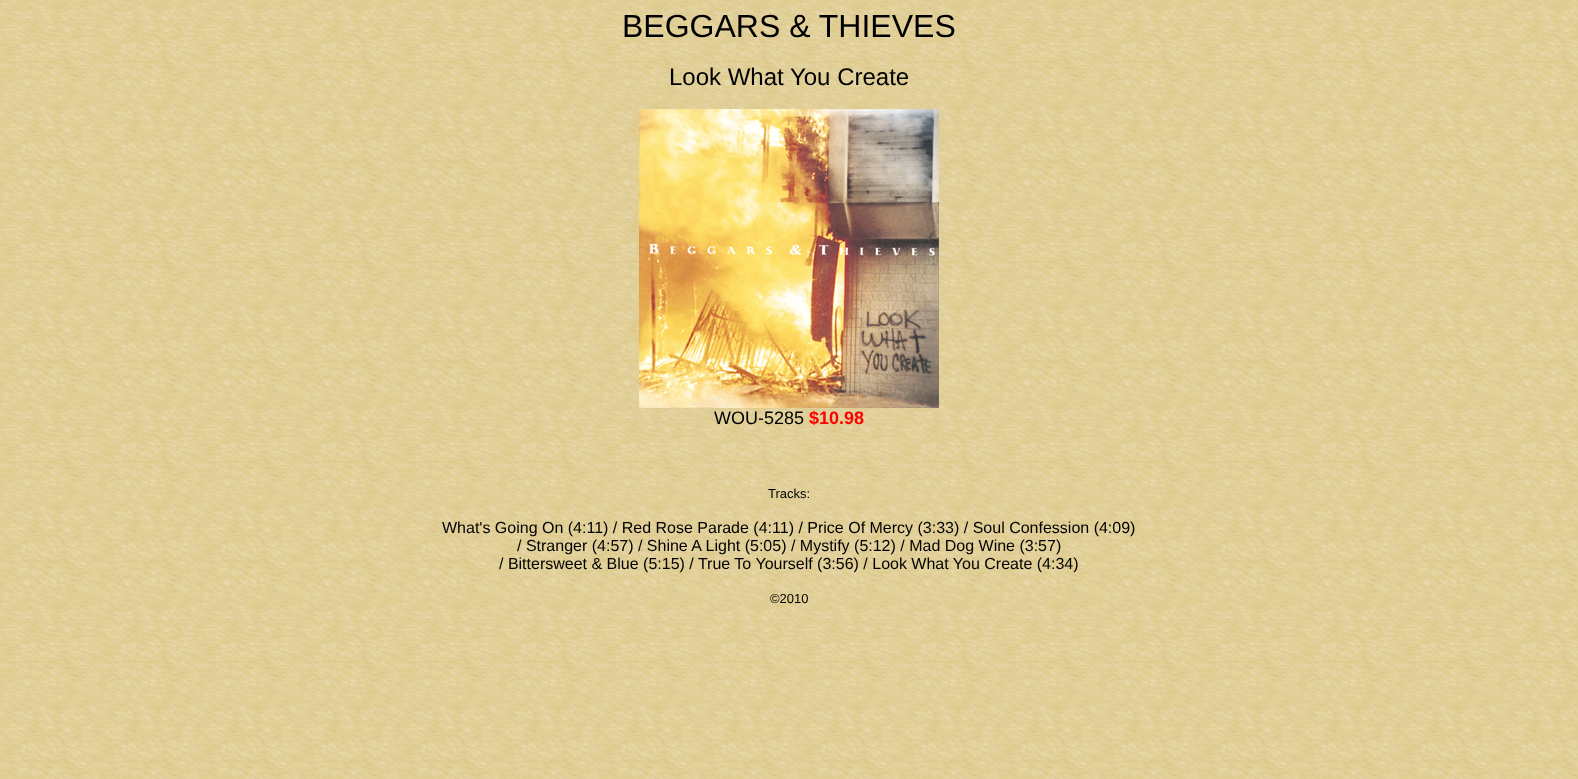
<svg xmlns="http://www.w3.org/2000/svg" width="1578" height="779">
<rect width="100%" height="100%" fill="#fff"/>
<image x="0" y="0" width="1578" height="779" href="media/1.png"/>
<text x="622" y="37" style="font-family:Liberation Sans;font-size:32px;fill:#000">BEGGARS &amp; THIEVES</text>
<text x="669" y="85" style="font-family:Liberation Sans;font-size:24px;fill:#000">Look What You Create</text>
<image x="639" y="109" width="300" height="299" href="media/2.png"/>
<text x="714" y="424" style="font-family:Liberation Sans;font-size:18px;fill:#000">WOU-5285</text>
<text x="809" y="424" style="font-family:Liberation Sans;font-size:18px;font-weight:bold;fill:#f00">$10.98</text>
<text x="768" y="498" style="font-family:Liberation Sans;font-size:13px;fill:#000">Tracks:</text>
<text x="442" y="533" style="font-family:Liberation Sans;font-size:16px;fill:#000">What's Going On (4:11) / Red Rose Parade (4:11) / Price Of Mercy (3:33) / Soul Confession (4:09)</text>
<text x="517" y="551" style="font-family:Liberation Sans;font-size:16px;fill:#000">/ Stranger (4:57) / Shine A Light (5:05) / Mystify (5:12) / Mad Dog Wine (3:57)</text>
<text x="499" y="569" style="font-family:Liberation Sans;font-size:16px;fill:#000">/ Bittersweet &amp; Blue (5:15) / True To Yourself (3:56) / Look What You Create (4:34)</text>
<text x="770" y="603" style="font-family:Liberation Sans;font-size:13px;fill:#000">©2010</text>
</svg>
